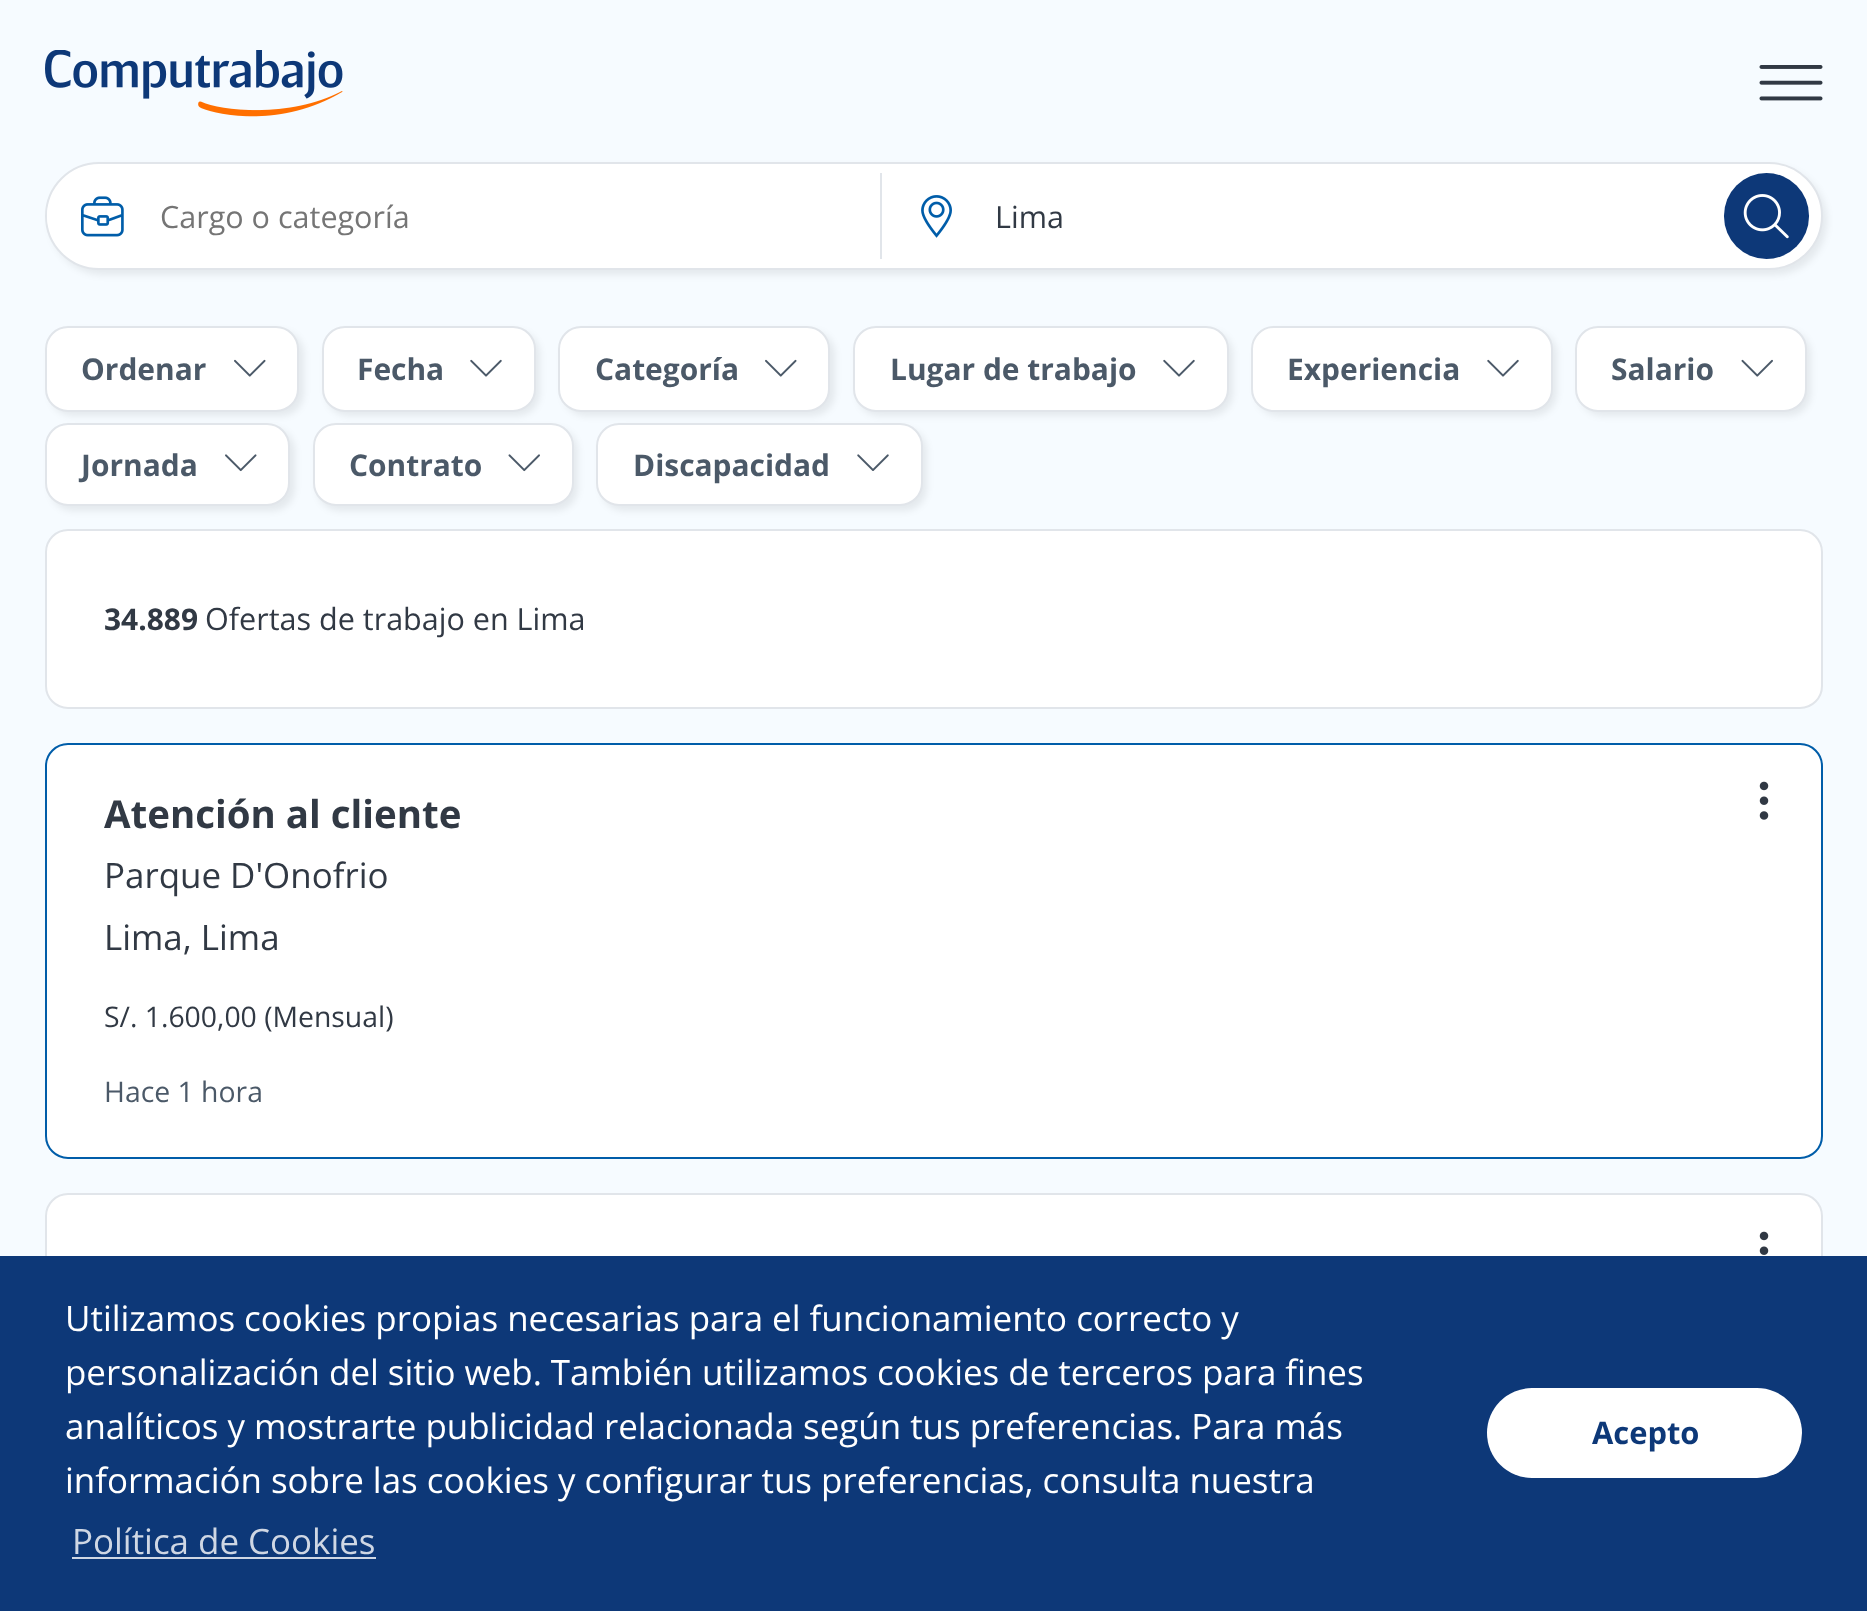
<svg xmlns="http://www.w3.org/2000/svg" width="1867" height="1611">
<rect width="100%" height="100%" fill="#f6fbff"/>
<image x="45" y="50" width="298" height="67" href="media/1.png"/>
<image x="1759" y="65" width="64" height="36" href="media/2.png"/>
<rect x="50" y="167" width="1777" height="108" rx="54" fill="#00000012" filter="blur(3.5px)"/>
<rect x="46" y="163" width="1776" height="106" rx="53" fill="#fff" stroke="#e1e5ea" stroke-width="2"/>
<rect x="47" y="173" width="833" height="86" rx="43" fill="#fff"/>
<image x="81" y="196" width="43" height="41" href="media/3.png"/>
<text x="160" y="228" style="font-family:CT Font;font-size:31.5px;fill:#757575">Cargo o categoría</text>
<rect x="880" y="173" width="2" height="86" fill="#e1e5ea"/>
<image x="921" y="195" width="31" height="43" href="media/4.png"/>
<text x="995" y="228" style="font-family:CT Font;font-size:31.5px;fill:#313944">Lima</text>
<rect x="1724" y="173" width="85" height="86" rx="42.5" fill="#0d3878"/>
<image x="1743" y="194" width="46" height="45" href="media/5.png"/>
<rect x="50" y="331" width="254" height="85" rx="23" fill="#00000012" filter="blur(3.5px)"/>
<rect x="46" y="327" width="252" height="84" rx="22" fill="#fff" stroke="#e1e5ea" stroke-width="2"/>
<text x="81" y="380" style="font-family:CT Font;font-size:31.5px;font-weight:bold;fill:#4b5968">Ordenar</text>
<image x="234" y="359" width="32" height="18" href="media/6.png"/>
<rect x="326" y="331" width="214" height="85" rx="23" fill="#00000012" filter="blur(3.5px)"/>
<rect x="323" y="327" width="212" height="84" rx="22" fill="#fff" stroke="#e1e5ea" stroke-width="2"/>
<text x="357" y="380" style="font-family:CT Font;font-size:31.5px;font-weight:bold;fill:#4b5968">Fecha</text>
<image x="470" y="359" width="32" height="18" href="media/7.png"/>
<rect x="563" y="331" width="272" height="85" rx="23" fill="#00000012" filter="blur(3.5px)"/>
<rect x="559" y="327" width="270" height="84" rx="22" fill="#fff" stroke="#e1e5ea" stroke-width="2"/>
<text x="595" y="380" style="font-family:CT Font;font-size:31.5px;font-weight:bold;fill:#4b5968">Categoría</text>
<image x="765" y="359" width="32" height="18" href="media/6.png"/>
<rect x="857" y="331" width="376" height="85" rx="23" fill="#00000012" filter="blur(3.5px)"/>
<rect x="854" y="327" width="374" height="84" rx="22" fill="#fff" stroke="#e1e5ea" stroke-width="2"/>
<text x="890" y="380" style="font-family:CT Font;font-size:31.5px;font-weight:bold;fill:#4b5968">Lugar de trabajo</text>
<image x="1163" y="359" width="32" height="18" href="media/7.png"/>
<rect x="1256" y="331" width="301" height="85" rx="23" fill="#00000012" filter="blur(3.5px)"/>
<rect x="1252" y="327" width="300" height="84" rx="22" fill="#fff" stroke="#e1e5ea" stroke-width="2"/>
<text x="1287" y="380" style="font-family:CT Font;font-size:31.5px;font-weight:bold;fill:#4b5968">Experiencia</text>
<image x="1487" y="359" width="32" height="18" href="media/7.png"/>
<rect x="1580" y="331" width="231" height="85" rx="23" fill="#00000012" filter="blur(3.5px)"/>
<rect x="1576" y="327" width="230" height="84" rx="22" fill="#fff" stroke="#e1e5ea" stroke-width="2"/>
<text x="1611" y="380" style="font-family:CT Font;font-size:31.5px;font-weight:bold;fill:#4b5968">Salario</text>
<image x="1741" y="359" width="32" height="18" href="media/8.png"/>
<rect x="50" y="428" width="245" height="83" rx="23" fill="#00000012" filter="blur(3.5px)"/>
<rect x="46" y="424" width="243" height="81" rx="22" fill="#fff" stroke="#e1e5ea" stroke-width="2"/>
<text x="81" y="476" style="font-family:CT Font;font-size:31.5px;font-weight:bold;fill:#4b5968">Jornada</text>
<image x="225" y="454" width="32" height="18" href="media/9.png"/>
<rect x="317" y="428" width="261" height="83" rx="23" fill="#00000012" filter="blur(3.5px)"/>
<rect x="314" y="424" width="259" height="81" rx="22" fill="#fff" stroke="#e1e5ea" stroke-width="2"/>
<text x="349" y="476" style="font-family:CT Font;font-size:31.5px;font-weight:bold;fill:#4b5968">Contrato</text>
<image x="508" y="454" width="32" height="18" href="media/10.png"/>
<rect x="601" y="428" width="326" height="83" rx="23" fill="#00000012" filter="blur(3.5px)"/>
<rect x="597" y="424" width="325" height="81" rx="22" fill="#fff" stroke="#e1e5ea" stroke-width="2"/>
<text x="633" y="476" style="font-family:CT Font;font-size:31.5px;font-weight:bold;fill:#4b5968">Discapacidad</text>
<image x="857" y="454" width="32" height="17" href="media/11.png"/>
<rect x="46" y="530" width="1776" height="178" rx="22" fill="#fff" stroke="#e1e5ea" stroke-width="2"/>
<text x="104" y="630" style="font-family:CT Font;font-size:31.5px;font-weight:bold;fill:#313944">34.889</text>
<text x="205" y="630" style="font-family:CT Font;font-size:31.5px;fill:#313944">Ofertas de trabajo en Lima</text>
<rect x="46" y="744" width="1776" height="414" rx="22" fill="#fff" stroke="#005da9" stroke-width="2"/>
<text x="104" y="828" style="font-family:CT Font;font-size:40.5px;font-weight:bold;fill:#313944">Atención al cliente</text>
<image x="1759" y="781" width="10" height="39" href="media/12.png"/>
<text x="104" y="888" style="font-family:CT Font;font-size:36px;fill:#313944">Parque D'Onofrio</text>
<text x="104" y="950" style="font-family:CT Font;font-size:36px;fill:#313944">Lima, Lima</text>
<text x="104" y="1027" style="font-family:CT Font;font-size:29.25px;fill:#313944">S/. 1.600,00 (Mensual)</text>
<text x="104" y="1102" style="font-family:CT Font;font-size:29.25px;fill:#4b5968">Hace 1 hora</text>
<rect x="46" y="1194" width="1776" height="340" rx="22" fill="#fff" stroke="#e1e5ea" stroke-width="2"/>
<image x="1759" y="1231" width="10" height="24" href="media/13.png"/>
<rect y="1256" width="1867" height="355" fill="#0d3878"/>
<text x="65" y="1331" style="font-family:CT Font;font-size:36px;fill:#fff">Utilizamos cookies propias necesarias para el funcionamiento correcto y</text>
<text x="65" y="1385" style="font-family:CT Font;font-size:36px;fill:#fff">personalización del sitio web. También utilizamos cookies de terceros para fines</text>
<text x="65" y="1439" style="font-family:CT Font;font-size:36px;fill:#fff">analíticos y mostrarte publicidad relacionada según tus preferencias. Para más</text>
<text x="65" y="1493" style="font-family:CT Font;font-size:36px;fill:#fff">información sobre las cookies y configurar tus preferencias, consulta nuestra</text>
<text x="72" y="1554" style="font-family:CT Font;font-size:36px;fill:#cfd7e4">Política de Cookies</text>
<rect x="72" y="1557" width="304" height="2" fill="#cfd7e4"/>
<rect x="1487" y="1388" width="315" height="90" rx="45" fill="#fff"/>
<text x="1592" y="1444" style="font-family:CT Font;font-size:32.5px;font-weight:bold;fill:#0d3878">Acepto</text>
</svg>
